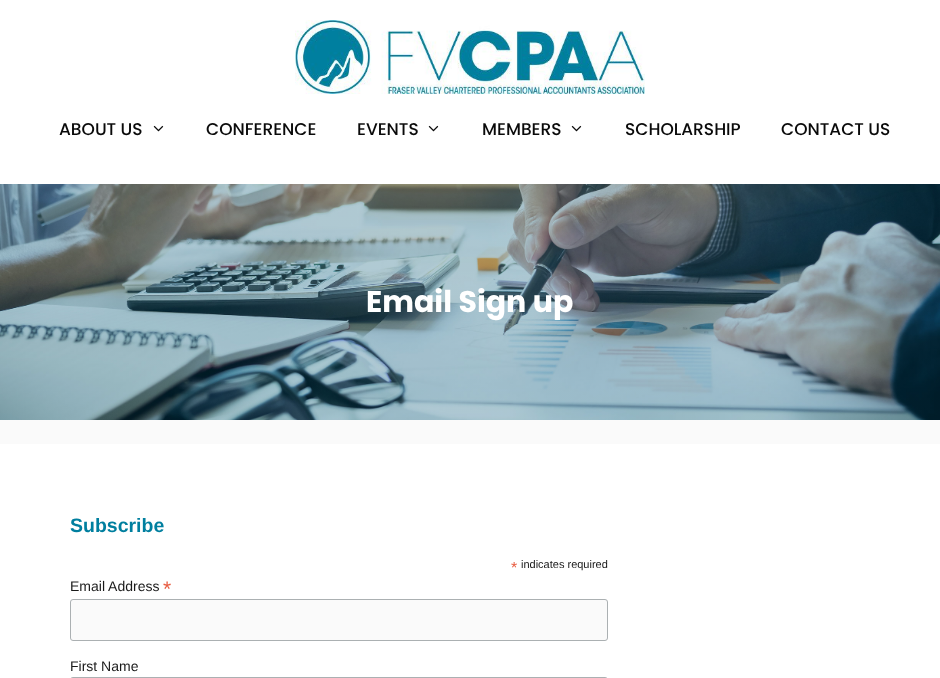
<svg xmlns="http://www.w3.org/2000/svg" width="940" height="678">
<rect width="100%" height="100%" fill="#fafafa"/>
<rect width="940" height="184" fill="#fff"/>
<image x="295" y="20" width="350" height="74" href="media/1.png"/>
<text x="59" y="135" style="font-family:Poppins;font-size:17px;font-weight:500;fill:#0a0a0a">ABOUT US</text>
<image x="153" y="125" width="11" height="7" href="media/2.png"/>
<text x="206" y="135" style="font-family:Poppins;font-size:17px;font-weight:500;fill:#0a0a0a">CONFERENCE</text>
<text x="357" y="135" style="font-family:Poppins;font-size:17px;font-weight:500;fill:#0a0a0a">EVENTS</text>
<image x="428" y="125" width="11" height="7" href="media/2.png"/>
<text x="482" y="135" style="font-family:Poppins;font-size:17px;font-weight:500;fill:#0a0a0a">MEMBERS</text>
<image x="571" y="125" width="11" height="7" href="media/2.png"/>
<text x="625" y="135" style="font-family:Poppins;font-size:17px;font-weight:500;fill:#0a0a0a">SCHOLARSHIP</text>
<text x="781" y="135" style="font-family:Poppins;font-size:17px;font-weight:500;fill:#0a0a0a">CONTACT US</text>
<image x="0" y="184" width="940" height="236" href="media/3.png"/>
<text x="366" y="312" style="font-family:Poppins;font-size:30px;font-weight:bold;fill:#fff">Email Sign up</text>
<rect y="444" width="940" height="234" fill="#fff"/>
<text x="70" y="532" style="font-family:Liberation Sans;font-size:19.5px;font-weight:bold;fill:#007f9f">Subscribe</text>
<text x="511" y="573" style="font-family:Liberation Sans;font-size:16px;fill:#e85c41">*</text>
<text x="521" y="568" style="font-family:Liberation Sans;font-size:11px;fill:#191919">indicates required</text>
<text x="70" y="591" style="font-family:Liberation Sans;font-size:14px;fill:#191919">Email Address</text>
<text x="163" y="596" style="font-family:Liberation Sans;font-size:21px;fill:#e85c41">*</text>
<rect x="70.5" y="599.5" width="537" height="41" rx="2.5" fill="#fafafa" stroke="#abb0b2"/>
<text x="70" y="671" style="font-family:Liberation Sans;font-size:14px;fill:#191919">First Name</text>
<rect x="70.5" y="677.5" width="537" height="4" rx="2.5" fill="none" stroke="#abb0b2"/>
</svg>
